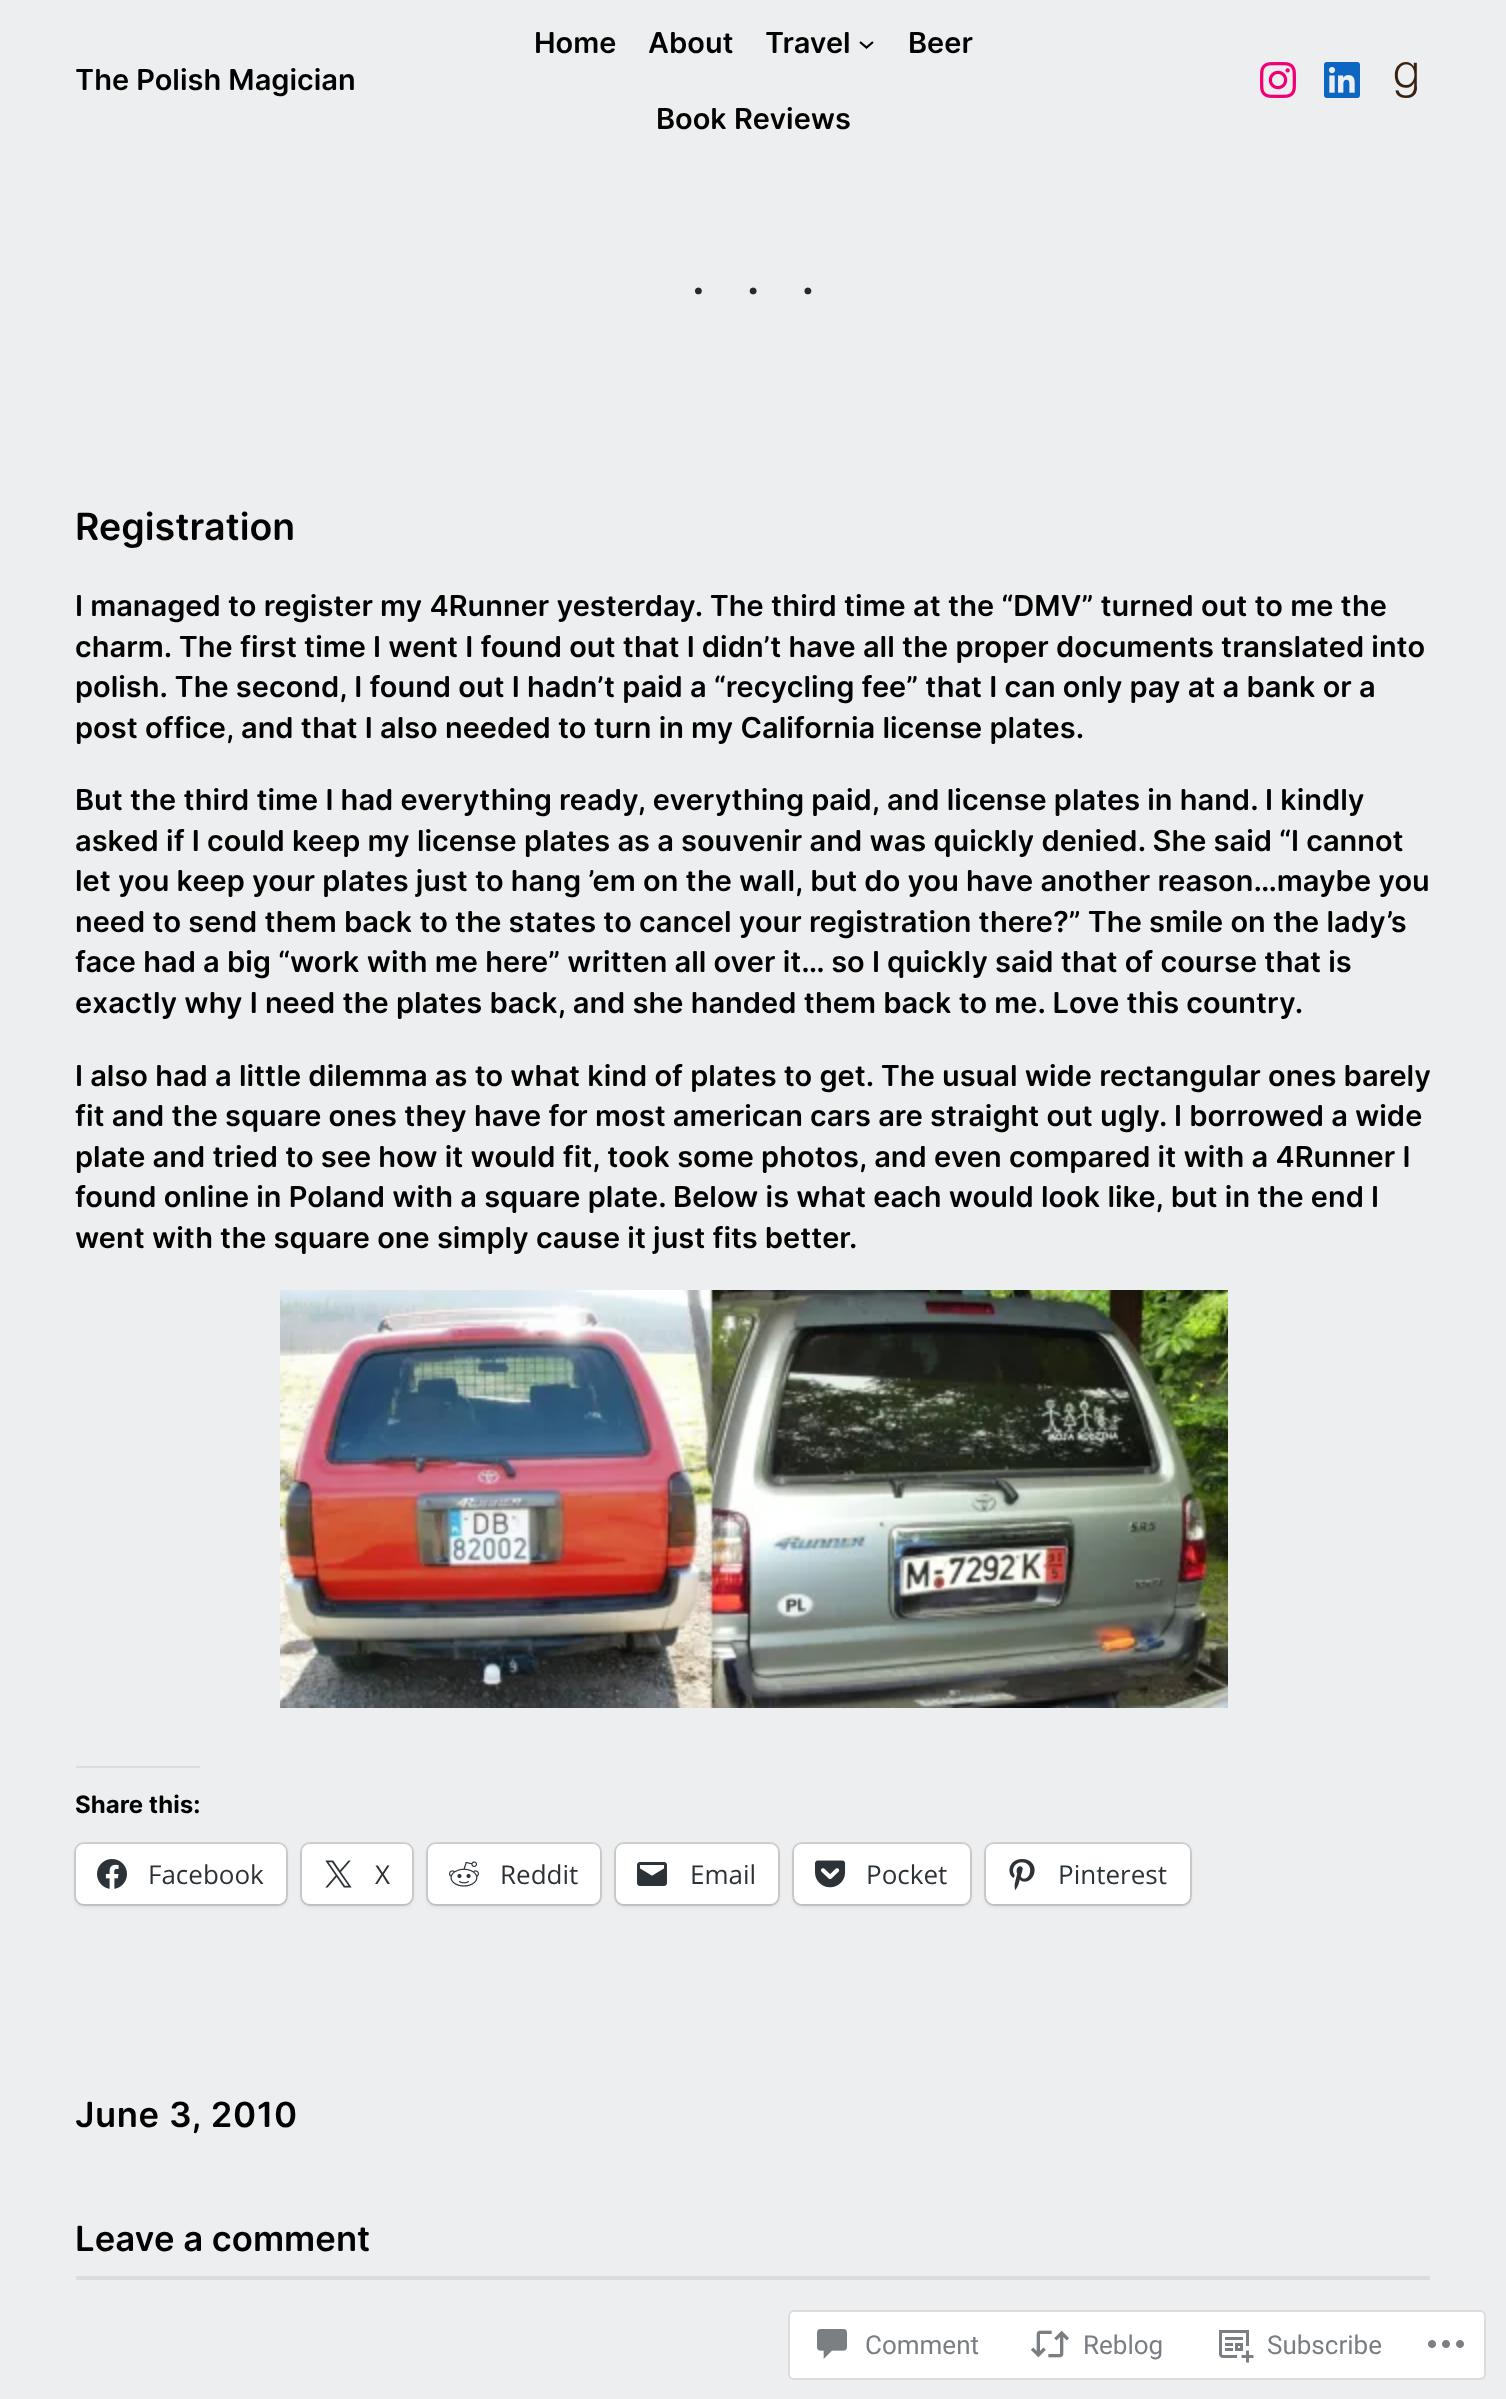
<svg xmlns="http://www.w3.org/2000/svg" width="1506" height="2399">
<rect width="100%" height="100%" fill="#edeeef"/>
<text x="75" y="90" style="font-family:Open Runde;font-size:29px;font-weight:600;fill:#030202">The Polish Magician</text>
<text x="534" y="53" style="font-family:Open Runde;font-size:29px;font-weight:600;fill:#030202">Home</text>
<text x="648" y="53" style="font-family:Open Runde;font-size:29px;font-weight:600;fill:#030202">About</text>
<text x="765" y="53" style="font-family:Open Runde;font-size:29px;font-weight:600;fill:#030202">Travel</text>
<path d="M860 42l6.5 5.5l6.5-5.5" fill="none" stroke="#030202" stroke-width="2.2"/>
<text x="908" y="53" style="font-family:Open Runde;font-size:29px;font-weight:600;fill:#030202">Beer</text>
<text x="656" y="129" style="font-family:Open Runde;font-size:29px;font-weight:600;fill:#030202">Book Reviews</text>
<image x="1260" y="62" width="36" height="36" href="media/1.png"/>
<image x="1324" y="62" width="36" height="36" href="media/2.png"/>
<image x="1394" y="62" width="23" height="36" href="media/3.png"/>
<text x="692" y="294" style="font-family:Open Runde;font-size:44px;font-weight:600;letter-spacing:42px;fill:#292929">...</text>
<text x="75" y="540" style="font-family:Open Runde;font-size:37.5px;font-weight:600;fill:#030202">Registration</text>
<text x="75" y="616" style="font-family:Open Runde;font-size:29px;font-weight:600;fill:#030202">I managed to register my 4Runner yesterday. The third time at the “DMV” turned out to me the</text>
<text x="75" y="657" style="font-family:Open Runde;font-size:29px;font-weight:600;fill:#030202">charm. The first time I went I found out that I didn’t have all the proper documents translated into</text>
<text x="75" y="697" style="font-family:Open Runde;font-size:29px;font-weight:600;fill:#030202">polish. The second, I found out I hadn’t paid a “recycling fee” that I can only pay at a bank or a</text>
<text x="75" y="738" style="font-family:Open Runde;font-size:29px;font-weight:600;fill:#030202">post office, and that I also needed to turn in my California license plates.</text>
<text x="75" y="810" style="font-family:Open Runde;font-size:29px;font-weight:600;fill:#030202">But the third time I had everything ready, everything paid, and license plates in hand. I kindly</text>
<text x="75" y="851" style="font-family:Open Runde;font-size:29px;font-weight:600;fill:#030202">asked if I could keep my license plates as a souvenir and was quickly denied. She said “I cannot</text>
<text x="75" y="891" style="font-family:Open Runde;font-size:29px;font-weight:600;fill:#030202">let you keep your plates just to hang ’em on the wall, but do you have another reason…maybe you</text>
<text x="75" y="932" style="font-family:Open Runde;font-size:29px;font-weight:600;fill:#030202">need to send them back to the states to cancel your registration there?” The smile on the lady’s</text>
<text x="75" y="972" style="font-family:Open Runde;font-size:29px;font-weight:600;fill:#030202">face had a big “work with me here” written all over it… so I quickly said that of course that is</text>
<text x="75" y="1013" style="font-family:Open Runde;font-size:29px;font-weight:600;fill:#030202">exactly why I need the plates back, and she handed them back to me. Love this country.</text>
<text x="75" y="1086" style="font-family:Open Runde;font-size:29px;font-weight:600;fill:#030202">I also had a little dilemma as to what kind of plates to get. The usual wide rectangular ones barely</text>
<text x="75" y="1126" style="font-family:Open Runde;font-size:29px;font-weight:600;fill:#030202">fit and the square ones they have for most american cars are straight out ugly. I borrowed a wide</text>
<text x="75" y="1167" style="font-family:Open Runde;font-size:29px;font-weight:600;fill:#030202">plate and tried to see how it would fit, took some photos, and even compared it with a 4Runner I</text>
<text x="75" y="1207" style="font-family:Open Runde;font-size:29px;font-weight:600;fill:#030202">found online in Poland with a square plate. Below is what each would look like, but in the end I</text>
<text x="75" y="1248" style="font-family:Open Runde;font-size:29px;font-weight:600;fill:#030202">went with the square one simply cause it just fits better.</text>
<image x="280" y="1290" width="948" height="418" href="media/4.png"/>
<rect x="76" y="1766" width="124" height="2" fill="#dcdcde"/>
<text x="75" y="1813" style="font-family:Open Runde;font-size:24px;font-weight:bold;fill:#030202">Share this:</text>
<rect x="75" y="1843" width="212" height="62" rx="9" fill="none" stroke="#d1d1d2" stroke-width="2"/>
<rect x="76" y="1846" width="210" height="60" rx="8" fill="#0000001f" filter="blur(2px)"/>
<rect x="76" y="1844" width="210" height="60" rx="8" fill="#fff"/>
<image x="97" y="1859" width="30" height="30" href="media/5.png"/>
<text x="148" y="1884" style="font-family:Open Sans;font-size:26px;fill:#2c3338">Facebook</text>
<rect x="301" y="1843" width="112" height="62" rx="9" fill="none" stroke="#d1d1d2" stroke-width="2"/>
<rect x="302" y="1846" width="110" height="60" rx="8" fill="#0000001f" filter="blur(2px)"/>
<rect x="302" y="1844" width="110" height="60" rx="8" fill="#fff"/>
<image x="325" y="1860" width="27" height="28" href="media/6.png"/>
<text x="375" y="1884" style="font-family:Open Sans;font-size:26px;fill:#2c3338">X</text>
<rect x="427" y="1843" width="174" height="62" rx="9" fill="none" stroke="#d1d1d2" stroke-width="2"/>
<rect x="428" y="1846" width="172" height="60" rx="8" fill="#0000001f" filter="blur(2px)"/>
<rect x="428" y="1844" width="172" height="60" rx="8" fill="#fff"/>
<image x="449" y="1861" width="30" height="26" href="media/7.png"/>
<text x="500" y="1884" style="font-family:Open Sans;font-size:26px;fill:#2c3338">Reddit</text>
<rect x="615" y="1843" width="164" height="62" rx="9" fill="none" stroke="#d1d1d2" stroke-width="2"/>
<rect x="616" y="1846" width="162" height="60" rx="8" fill="#0000001f" filter="blur(2px)"/>
<rect x="616" y="1844" width="162" height="60" rx="8" fill="#fff"/>
<image x="637" y="1862" width="30" height="24" href="media/8.png"/>
<text x="690" y="1884" style="font-family:Open Sans;font-size:26px;fill:#2c3338">Email</text>
<rect x="793" y="1843" width="178" height="62" rx="9" fill="none" stroke="#d1d1d2" stroke-width="2"/>
<rect x="794" y="1846" width="176" height="60" rx="8" fill="#0000001f" filter="blur(2px)"/>
<rect x="794" y="1844" width="176" height="60" rx="8" fill="#fff"/>
<image x="815" y="1860" width="31" height="28" href="media/9.png"/>
<text x="866" y="1884" style="font-family:Open Sans;font-size:26px;fill:#2c3338">Pocket</text>
<rect x="985" y="1843" width="206" height="62" rx="9" fill="none" stroke="#d1d1d2" stroke-width="2"/>
<rect x="986" y="1846" width="204" height="60" rx="8" fill="#0000001f" filter="blur(2px)"/>
<rect x="986" y="1844" width="204" height="60" rx="8" fill="#fff"/>
<image x="1009" y="1859" width="26" height="32" href="media/10.png"/>
<text x="1058" y="1884" style="font-family:Open Sans;font-size:26px;fill:#2c3338">Pinterest</text>
<text x="75" y="2127" style="font-family:Open Runde;font-size:34.75px;font-weight:600;letter-spacing:0.6px;fill:#030202">June 3, 2010</text>
<text x="75" y="2251" style="font-family:Open Runde;font-size:34.75px;font-weight:600;fill:#030202">Leave a comment</text>
<rect x="76" y="2276" width="1354" height="4" fill="#dcdcde"/>
<rect x="789" y="2311" width="696" height="68" rx="5" fill="#fff" stroke="#dcdcde" stroke-width="2"/>
<image x="817" y="2329" width="30" height="30" href="media/11.png"/>
<text x="865" y="2354" style="font-family:Roboto;font-size:26px;fill:#7a7e84">Comment</text>
<image x="1030" y="2330" width="40" height="28" href="media/12.png"/>
<text x="1083" y="2354" style="font-family:Roboto;font-size:26px;fill:#7a7e84">Reblog</text>
<image x="1219" y="2330" width="35" height="33" href="media/13.png"/>
<text x="1267" y="2354" style="font-family:Roboto;font-size:26px;fill:#7a7e84">Subscribe</text>
<image x="1428" y="2340" width="36" height="8" href="media/14.png"/>
</svg>
